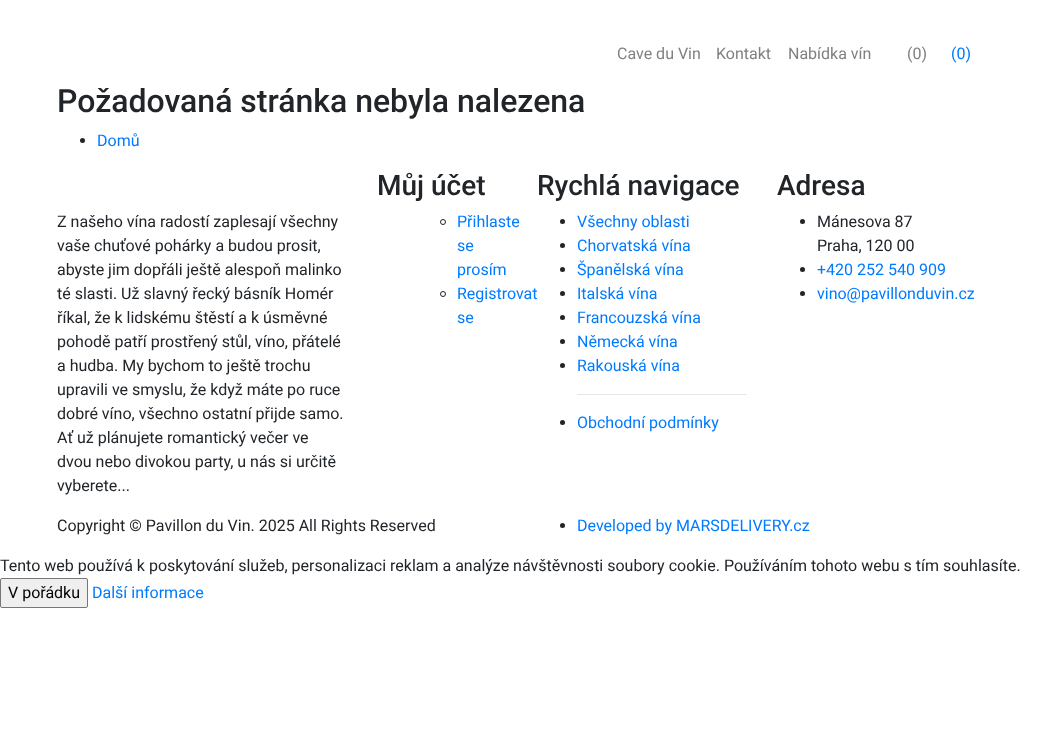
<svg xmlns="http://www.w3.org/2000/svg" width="1044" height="750">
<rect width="100%" height="100%" fill="#fff"/>
<text x="617" y="59" style="font-family:Roboto;font-size:16px;fill:#808080">Cave du Vin</text>
<text x="716" y="59" style="font-family:Roboto;font-size:16px;fill:#808080">Kontakt</text>
<text x="788" y="59" style="font-family:Roboto;font-size:16px;fill:#808080">Nabídka vín</text>
<text x="907" y="59" style="font-family:Roboto;font-size:16px;fill:#808080">(0)</text>
<text x="951" y="59" style="font-family:Roboto;font-size:16px;fill:#007bff">(0)</text>
<text x="57" y="112" style="font-family:Roboto;font-size:32px;font-weight:500;fill:#212529">Požadovaná stránka nebyla nalezena</text>
<circle cx="82.5" cy="140.5" r="2.5" fill="#212529"/>
<text x="97" y="146" style="font-family:Roboto;font-size:16px;fill:#007bff">Domů</text>
<text x="57" y="227" style="font-family:Roboto;font-size:16px;fill:#212529">Z našeho vína radostí zaplesají všechny</text>
<text x="57" y="251" style="font-family:Roboto;font-size:16px;fill:#212529">vaše chuťové pohárky a budou prosit,</text>
<text x="57" y="275" style="font-family:Roboto;font-size:16px;fill:#212529">abyste jim dopřáli ještě alespoň malinko</text>
<text x="57" y="299" style="font-family:Roboto;font-size:16px;fill:#212529">té slasti. Už slavný řecký básník Homér</text>
<text x="57" y="323" style="font-family:Roboto;font-size:16px;fill:#212529">říkal, že k lidskému štěstí a k úsměvné</text>
<text x="57" y="347" style="font-family:Roboto;font-size:16px;fill:#212529">pohodě patří prostřený stůl, víno, přátelé</text>
<text x="57" y="371" style="font-family:Roboto;font-size:16px;fill:#212529">a hudba. My bychom to ještě trochu</text>
<text x="57" y="395" style="font-family:Roboto;font-size:16px;fill:#212529">upravili ve smyslu, že když máte po ruce</text>
<text x="57" y="419" style="font-family:Roboto;font-size:16px;fill:#212529">dobré víno, všechno ostatní přijde samo.</text>
<text x="57" y="443" style="font-family:Roboto;font-size:16px;fill:#212529">Ať už plánujete romantický večer ve</text>
<text x="57" y="467" style="font-family:Roboto;font-size:16px;fill:#212529">dvou nebo divokou party, u nás si určitě</text>
<text x="57" y="491" style="font-family:Roboto;font-size:16px;fill:#212529">vyberete...</text>
<text x="377" y="195" style="font-family:Roboto;font-size:28px;font-weight:500;fill:#212529">Můj účet</text>
<circle cx="443" cy="222" r="2.5" fill="none" stroke="#212529"/>
<text x="457" y="227" style="font-family:Roboto;font-size:16px;fill:#007bff">Přihlaste</text>
<text x="457" y="251" style="font-family:Roboto;font-size:16px;fill:#007bff">se</text>
<text x="457" y="275" style="font-family:Roboto;font-size:16px;fill:#007bff">prosím</text>
<circle cx="443" cy="294" r="2.5" fill="none" stroke="#212529"/>
<text x="457" y="299" style="font-family:Roboto;font-size:16px;fill:#007bff">Registrovat</text>
<text x="457" y="323" style="font-family:Roboto;font-size:16px;fill:#007bff">se</text>
<text x="537" y="195" style="font-family:Roboto;font-size:28px;font-weight:500;fill:#212529">Rychlá navigace</text>
<circle cx="562.5" cy="221.5" r="2.5" fill="#212529"/>
<text x="577" y="227" style="font-family:Roboto;font-size:16px;fill:#007bff">Všechny oblasti</text>
<circle cx="562.5" cy="245.5" r="2.5" fill="#212529"/>
<text x="577" y="251" style="font-family:Roboto;font-size:16px;fill:#007bff">Chorvatská vína</text>
<circle cx="562.5" cy="269.5" r="2.5" fill="#212529"/>
<text x="577" y="275" style="font-family:Roboto;font-size:16px;fill:#007bff">Španělská vína</text>
<circle cx="562.5" cy="293.5" r="2.5" fill="#212529"/>
<text x="577" y="299" style="font-family:Roboto;font-size:16px;fill:#007bff">Italská vína</text>
<circle cx="562.5" cy="317.5" r="2.5" fill="#212529"/>
<text x="577" y="323" style="font-family:Roboto;font-size:16px;fill:#007bff">Francouzská vína</text>
<circle cx="562.5" cy="341.5" r="2.5" fill="#212529"/>
<text x="577" y="347" style="font-family:Roboto;font-size:16px;fill:#007bff">Německá vína</text>
<circle cx="562.5" cy="365.5" r="2.5" fill="#212529"/>
<text x="577" y="371" style="font-family:Roboto;font-size:16px;fill:#007bff">Rakouská vína</text>
<rect x="577" y="394" width="170" height="1" fill="#e6e6e6"/>
<circle cx="562.5" cy="422.5" r="2.5" fill="#212529"/>
<text x="577" y="428" style="font-family:Roboto;font-size:16px;fill:#007bff">Obchodní podmínky</text>
<text x="777" y="195" style="font-family:Roboto;font-size:28px;font-weight:500;fill:#212529">Adresa</text>
<circle cx="802.5" cy="221.5" r="2.5" fill="#212529"/>
<text x="817" y="227" style="font-family:Roboto;font-size:16px;fill:#212529">Mánesova 87</text>
<text x="817" y="251" style="font-family:Roboto;font-size:16px;fill:#212529">Praha, 120 00</text>
<circle cx="802.5" cy="269.5" r="2.5" fill="#212529"/>
<text x="817" y="275" style="font-family:Roboto;font-size:16px;fill:#007bff">+420 252 540 909</text>
<circle cx="802.5" cy="293.5" r="2.5" fill="#212529"/>
<text x="817" y="299" style="font-family:Roboto;font-size:16px;fill:#007bff">vino@pavillonduvin.cz</text>
<text x="57" y="531" style="font-family:Roboto;font-size:16px;fill:#212529">Copyright © Pavillon du Vin. 2025 All Rights Reserved</text>
<circle cx="562.5" cy="525.5" r="2.5" fill="#212529"/>
<text x="577" y="531" style="font-family:Roboto;font-size:16px;fill:#007bff">Developed by MARSDELIVERY.cz</text>
<text x="0" y="571" style="font-family:Roboto;font-size:16px;fill:#212529">Tento web používá k poskytování služeb, personalizaci reklam a analýze návštěvnosti soubory cookie. Používáním tohoto webu s tím souhlasíte.</text>
<rect x="0.5" y="578.5" width="87" height="29" rx="1.5" fill="#efefef" stroke="#767676"/>
<text x="8" y="598" style="font-family:Roboto;font-size:16px;fill:#000">V pořádku</text>
<text x="92" y="598" style="font-family:Roboto;font-size:16px;fill:#007bff">Další informace</text>
</svg>
